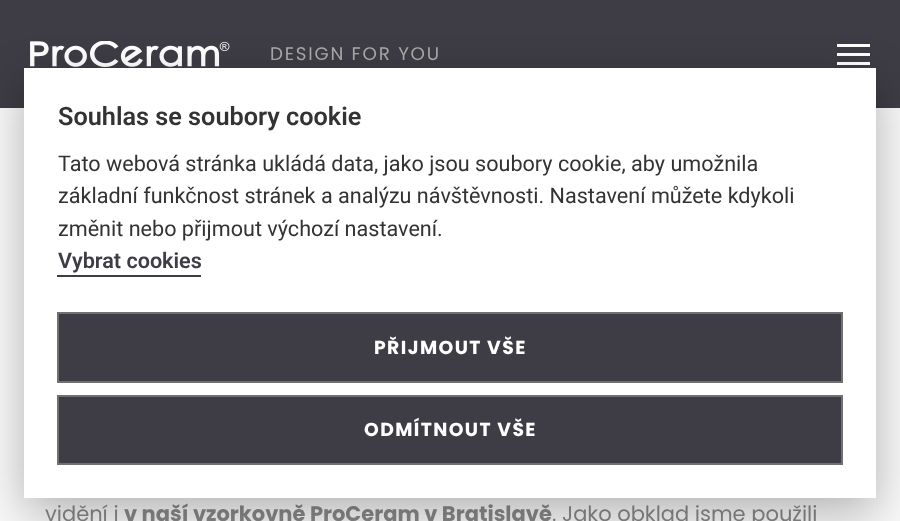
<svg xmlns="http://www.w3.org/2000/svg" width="900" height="521">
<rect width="100%" height="100%" fill="#f8f8f8"/>
<rect width="900" height="108" fill="#3e3c44"/>
<image x="30" y="41" width="200" height="26" href="media/1.png"/>
<text x="270" y="60" style="font-family:Poppins;font-size:18.25px;letter-spacing:1.75px;fill:#aaa">DESIGN FOR YOU</text>
<rect x="837" y="44" width="33" height="3" fill="#fff"/>
<rect x="837" y="53" width="33" height="3" fill="#fff"/>
<rect x="837" y="62" width="33" height="3" fill="#fff"/>
<text x="45" y="521" style="font-family:Poppins;font-size:21px;fill:#888">vidění i</text>
<text x="124" y="521" style="font-family:Poppins;font-size:21px;font-weight:bold;fill:#888">v naší vzorkovně ProCeram v Bratislavě</text>
<text x="552" y="521" style="font-family:Poppins;font-size:21px;fill:#888">. Jako obklad jsme použili</text>
<rect x="24" y="83" width="852" height="430" fill="#02020347" filter="blur(22.5px)"/>
<rect x="24" y="68" width="852" height="430" fill="#fff"/>
<text x="58" y="125" style="font-family:Roboto;font-size:25.25px;font-weight:600;fill:#333">Souhlas se soubory cookie</text>
<text x="58" y="171" style="font-family:Roboto;font-size:21.6px;fill:#333">Tato webová stránka ukládá data, jako jsou soubory cookie, aby umožnila</text>
<text x="58" y="203" style="font-family:Roboto;font-size:21.6px;fill:#333">základní funkčnost stránek a analýzu návštěvnosti. Nastavení můžete kdykoli</text>
<text x="58" y="236" style="font-family:Roboto;font-size:21.6px;fill:#333">změnit nebo přijmout výchozí nastavení.</text>
<text x="58" y="268" style="font-family:Roboto;font-size:21.6px;font-weight:600;fill:#3e3c44">Vybrat cookies</text>
<rect x="57" y="275" width="144" height="2" fill="#3e3c44"/>
<rect x="58" y="313" width="784" height="69" fill="#3e3c44" stroke="#707070" stroke-width="2"/>
<text x="374" y="354" style="font-family:Poppins;font-size:18.75px;font-weight:bold;letter-spacing:1.4px;fill:#fff">PŘIJMOUT VŠE</text>
<rect x="58" y="396" width="784" height="68" fill="#3e3c44" stroke="#707070" stroke-width="2"/>
<text x="364" y="436" style="font-family:Poppins;font-size:18.75px;font-weight:bold;letter-spacing:1.4px;fill:#fff">ODMÍTNOUT VŠE</text>
</svg>
